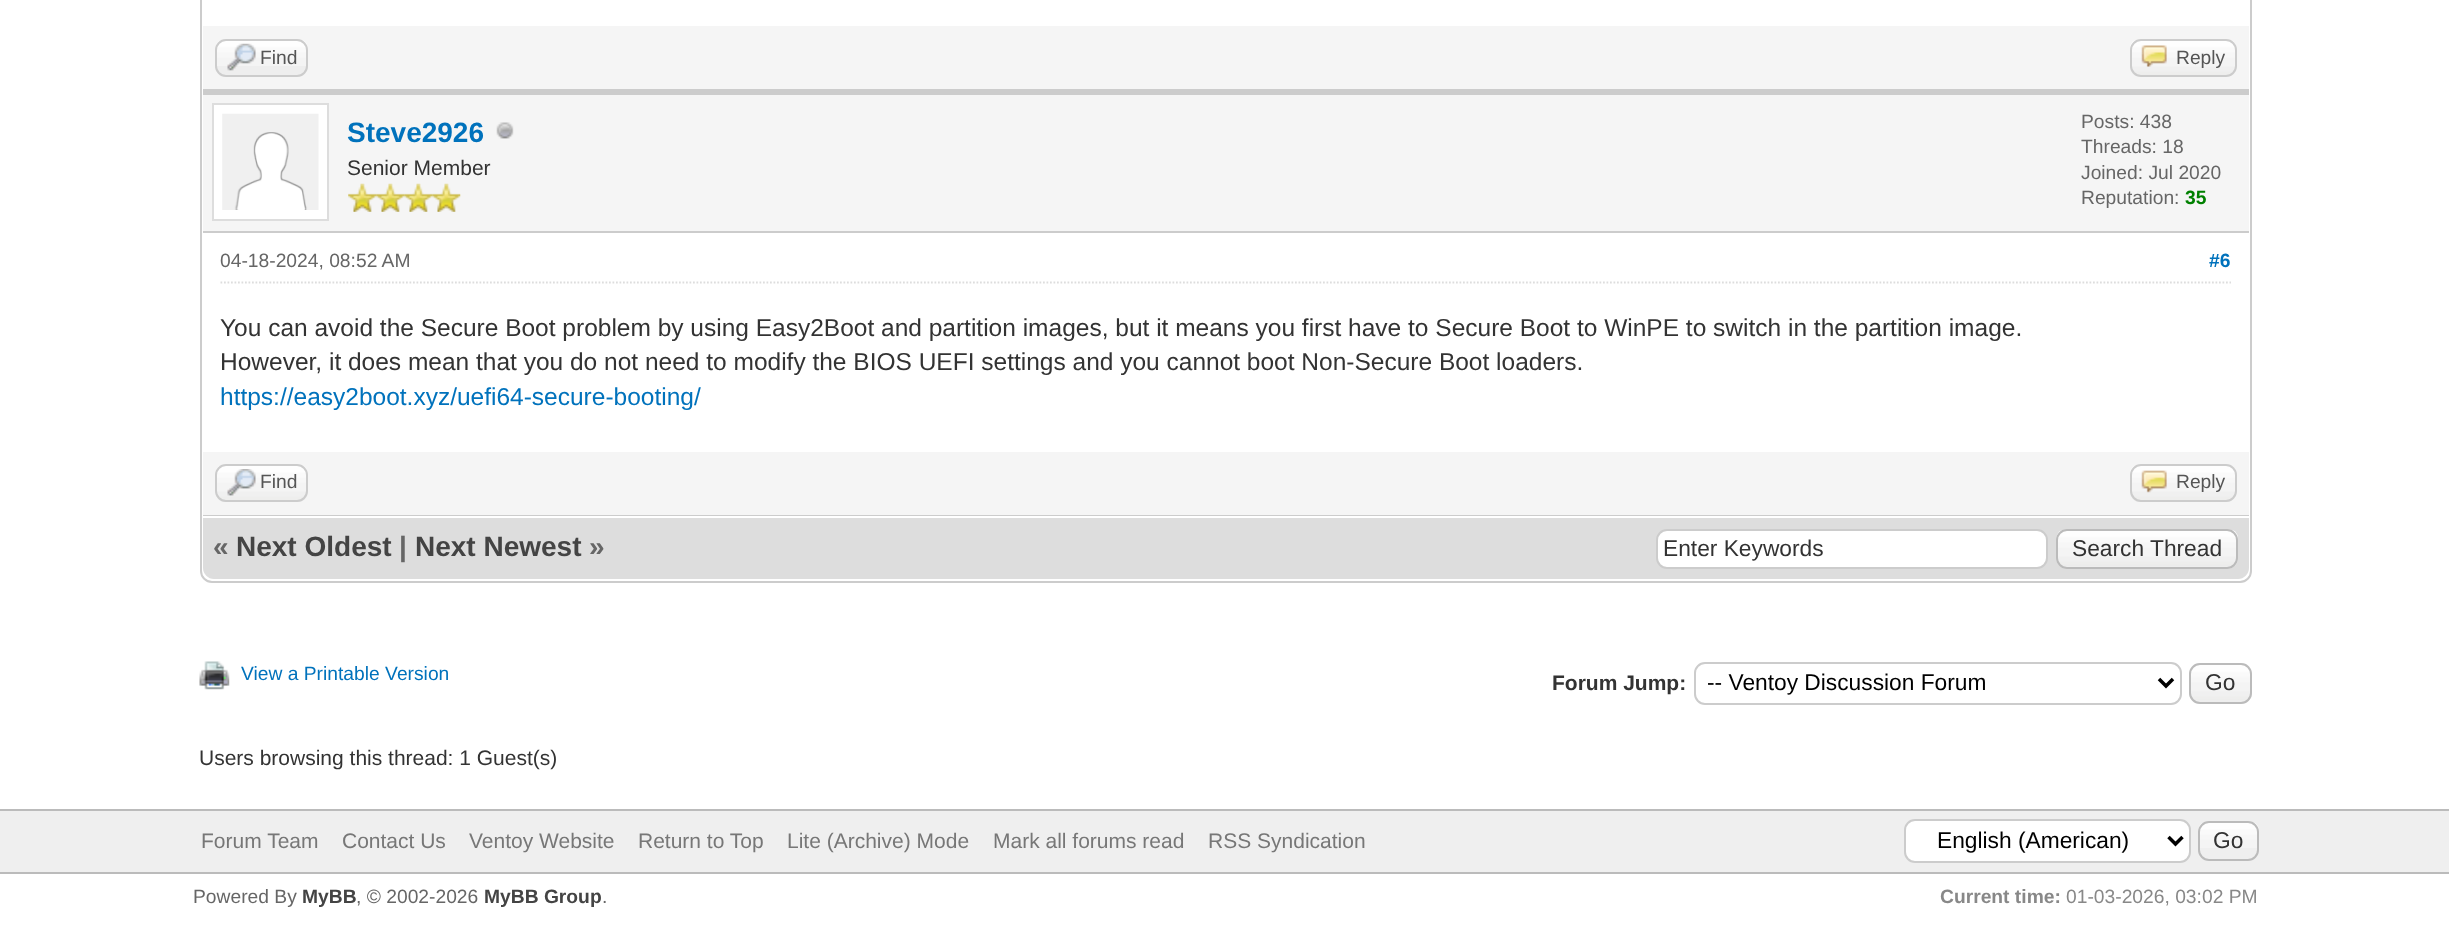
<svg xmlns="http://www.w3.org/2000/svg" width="2449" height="930">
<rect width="100%" height="100%" fill="#fff"/>
<rect x="201" y="-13" width="2050" height="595" rx="11" fill="none" stroke="#ccc" stroke-width="2"/>
<rect x="203" y="26" width="2046" height="63" fill="#f5f5f5"/>
<rect x="203" y="89" width="2046" height="6" fill="#ccc"/>
<rect x="215" y="39" width="93" height="38" rx="11" fill="#eee"/>
<image x="215" y="40" width="93" height="26" href="media/1.png"/>
<rect x="216" y="40" width="91" height="36" rx="10" fill="none" stroke="#ccc" stroke-width="2"/>
<image x="227" y="43" width="29" height="28" href="media/2.png"/>
<text x="260" y="64" style="font-family:Liberation Sans;font-size:19.25px;fill:#555">Find</text>
<image x="2130" y="40" width="106" height="36" href="media/3.png"/>
<rect x="2131" y="40" width="105" height="36" rx="10" fill="none" stroke="#ccc" stroke-width="2"/>
<image x="2141" y="45" width="26" height="22" href="media/4.png"/>
<text x="2176" y="64" style="font-family:Liberation Sans;font-size:19.25px;fill:#555">Reply</text>
<rect x="203" y="95" width="2046" height="136" fill="#f5f5f5"/>
<rect x="203" y="231" width="2046" height="2" fill="#ccc"/>
<rect x="213" y="104" width="115" height="116" fill="#fff" stroke="#ddd" stroke-width="2"/>
<image x="222" y="113" width="97" height="97" href="media/5.png"/>
<text x="347" y="142" style="font-family:Liberation Sans;font-size:28px;font-weight:bold;fill:#0072bc">Steve2926</text>
<image x="496" y="122" width="18" height="17" href="media/6.png"/>
<text x="347" y="175" style="font-family:Liberation Sans;font-size:21px;fill:#333">Senior Member</text>
<image x="348" y="183" width="29" height="29" href="media/7.png"/>
<image x="376" y="183" width="29" height="29" href="media/8.png"/>
<image x="404" y="183" width="29" height="29" href="media/8.png"/>
<image x="432" y="183" width="29" height="29" href="media/8.png"/>
<text x="2081" y="128" style="font-family:Liberation Sans;font-size:19.25px;fill:#666">Posts: 438</text>
<text x="2081" y="153" style="font-family:Liberation Sans;font-size:19.25px;fill:#666">Threads: 18</text>
<text x="2081" y="179" style="font-family:Liberation Sans;font-size:19.25px;fill:#666">Joined: Jul 2020</text>
<text x="2081" y="204" style="font-family:Liberation Sans;font-size:19.25px;fill:#666">Reputation:</text>
<text x="2185" y="204" style="font-family:Liberation Sans;font-size:19.25px;font-weight:bold;fill:#008000">35</text>
<path d="M220.5 282.5h2010.5" fill="none" stroke="#ddd" stroke-width="1.8" stroke-dasharray="1.75 1.75"/>
<text x="220" y="267" style="font-family:Liberation Sans;font-size:19.25px;fill:#666">04-18-2024, 08:52 AM</text>
<text x="2209" y="267" style="font-family:Liberation Sans;font-size:19.25px;font-weight:bold;fill:#0072bc">#6</text>
<text x="220" y="336" style="font-family:Liberation Sans;font-size:24.5px;fill:#333">You can avoid the Secure Boot problem by using Easy2Boot and partition images, but it means you first have to Secure Boot to WinPE to switch in the partition image.</text>
<text x="220" y="370" style="font-family:Liberation Sans;font-size:24.5px;fill:#333">However, it does mean that you do not need to modify the BIOS UEFI settings and you cannot boot Non-Secure Boot loaders.</text>
<text x="220" y="405" style="font-family:Liberation Sans;font-size:24.5px;fill:#0072bc">https://easy2boot.xyz/uefi64-secure-booting/</text>
<rect x="203" y="452" width="2046" height="63" fill="#f5f5f5"/>
<rect x="203" y="515" width="2046" height="1" fill="#ccc"/>
<image x="215" y="465" width="93" height="37" href="media/9.png"/>
<rect x="216" y="465" width="91" height="36" rx="10" fill="none" stroke="#ccc" stroke-width="2"/>
<image x="227" y="469" width="29" height="27" href="media/10.png"/>
<text x="260" y="488" style="font-family:Liberation Sans;font-size:19.25px;fill:#555">Find</text>
<image x="2130" y="465" width="106" height="37" href="media/11.png"/>
<rect x="2131" y="465" width="105" height="36" rx="10" fill="none" stroke="#ccc" stroke-width="2"/>
<image x="2141" y="470" width="26" height="23" href="media/12.png"/>
<text x="2176" y="488" style="font-family:Liberation Sans;font-size:19.25px;fill:#555">Reply</text>
<path d="M203 516h2046v52c0 6-5 11-11 11h-2024c-6 0-11-5-11-11z" fill="#ddd"/>
<rect x="203" y="516" width="2046" height="2" fill="#fff"/>
<text x="213" y="556" style="font-family:Liberation Sans;font-size:28px;font-weight:bold;fill:#666">«</text>
<text x="236" y="556" style="font-family:Liberation Sans;font-size:28px;font-weight:bold;fill:#444">Next Oldest</text>
<text x="399" y="556" style="font-family:Liberation Sans;font-size:28px;font-weight:bold;fill:#666">|</text>
<text x="415" y="556" style="font-family:Liberation Sans;font-size:28px;font-weight:bold;fill:#444">Next Newest</text>
<text x="589" y="556" style="font-family:Liberation Sans;font-size:28px;font-weight:bold;fill:#666">»</text>
<rect x="1657" y="530" width="390" height="38" rx="10" fill="#fff" stroke="#ccc" stroke-width="2"/>
<text x="1663" y="556" style="font-family:Liberation Sans;font-size:22.75px;fill:#333">Enter Keywords</text>
<rect x="2056" y="529" width="182" height="40" rx="11" fill="#eee"/>
<image x="2056" y="530" width="182" height="36" href="media/13.png"/>
<rect x="2057" y="530" width="180" height="38" rx="10" fill="none" stroke="#bbb" stroke-width="2"/>
<text x="2072" y="556" style="font-family:Liberation Sans;font-size:22.75px;fill:#333">Search Thread</text>
<image x="199" y="661" width="31" height="29" href="media/14.png"/>
<text x="241" y="680" style="font-family:Liberation Sans;font-size:19.25px;fill:#0072bc">View a Printable Version</text>
<text x="1552" y="690" style="font-family:Liberation Sans;font-size:21px;font-weight:bold;fill:#333">Forum Jump:</text>
<rect x="1695" y="663" width="486" height="41" rx="10" fill="none" stroke="#ccc" stroke-width="2"/>
<path d="M2159 679l7 7l7-7" fill="none" stroke="#000" stroke-width="3.5"/>
<text x="1707" y="690" style="font-family:Liberation Sans;font-size:22.75px;fill:#000">-- Ventoy Discussion Forum</text>
<rect x="2189" y="663" width="63" height="41" rx="11" fill="#eee"/>
<image x="2189" y="665" width="63" height="35" href="media/15.png"/>
<rect x="2190" y="664" width="61" height="39" rx="10" fill="none" stroke="#bbb" stroke-width="2"/>
<text x="2205" y="690" style="font-family:Liberation Sans;font-size:22.75px;fill:#333">Go</text>
<text x="199" y="765" style="font-family:Liberation Sans;font-size:21px;fill:#333">Users browsing this thread: 1 Guest(s)</text>
<rect y="811" width="2449" height="61" fill="#efefef"/>
<rect y="809" width="2449" height="2" fill="#bbb"/>
<rect y="872" width="2449" height="2" fill="#bbb"/>
<text x="201" y="848" style="font-family:Liberation Sans;font-size:21px;fill:#777">Forum Team</text>
<text x="342" y="848" style="font-family:Liberation Sans;font-size:21px;fill:#777">Contact Us</text>
<text x="469" y="848" style="font-family:Liberation Sans;font-size:21px;fill:#777">Ventoy Website</text>
<text x="638" y="848" style="font-family:Liberation Sans;font-size:21px;fill:#777">Return to Top</text>
<text x="787" y="848" style="font-family:Liberation Sans;font-size:21px;fill:#777">Lite (Archive) Mode</text>
<text x="993" y="848" style="font-family:Liberation Sans;font-size:21px;fill:#777">Mark all forums read</text>
<text x="1208" y="848" style="font-family:Liberation Sans;font-size:21px;fill:#777">RSS Syndication</text>
<rect x="1905" y="820" width="285" height="42" rx="10" fill="#fff" stroke="#ccc" stroke-width="2"/>
<path d="M2168.5 837l7 7l7-7" fill="none" stroke="#000" stroke-width="3.5"/>
<text x="1937" y="848" style="font-family:Liberation Sans;font-size:22.75px;fill:#000">English (American)</text>
<image x="2198" y="822" width="61" height="26" href="media/16.png"/>
<rect x="2199" y="822" width="59" height="38" rx="10" fill="none" stroke="#bbb" stroke-width="2"/>
<text x="2213" y="848" style="font-family:Liberation Sans;font-size:22.75px;fill:#333">Go</text>
<text x="193" y="903" style="font-family:Liberation Sans;font-size:19.25px;fill:#666">Powered By</text>
<text x="302" y="903" style="font-family:Liberation Sans;font-size:19.25px;font-weight:bold;fill:#444">MyBB</text>
<text x="356" y="903" style="font-family:Liberation Sans;font-size:19.25px;fill:#666">, © 2002-2026</text>
<text x="484" y="903" style="font-family:Liberation Sans;font-size:19.25px;font-weight:bold;fill:#444">MyBB Group</text>
<text x="602" y="903" style="font-family:Liberation Sans;font-size:19.25px;fill:#666">.</text>
<text x="1940" y="903" style="font-family:Liberation Sans;font-size:19.25px;font-weight:bold;fill:#888">Current time:</text>
<text x="2066" y="903" style="font-family:Liberation Sans;font-size:19.25px;fill:#888">01-03-2026, 03:02 PM</text>
</svg>
